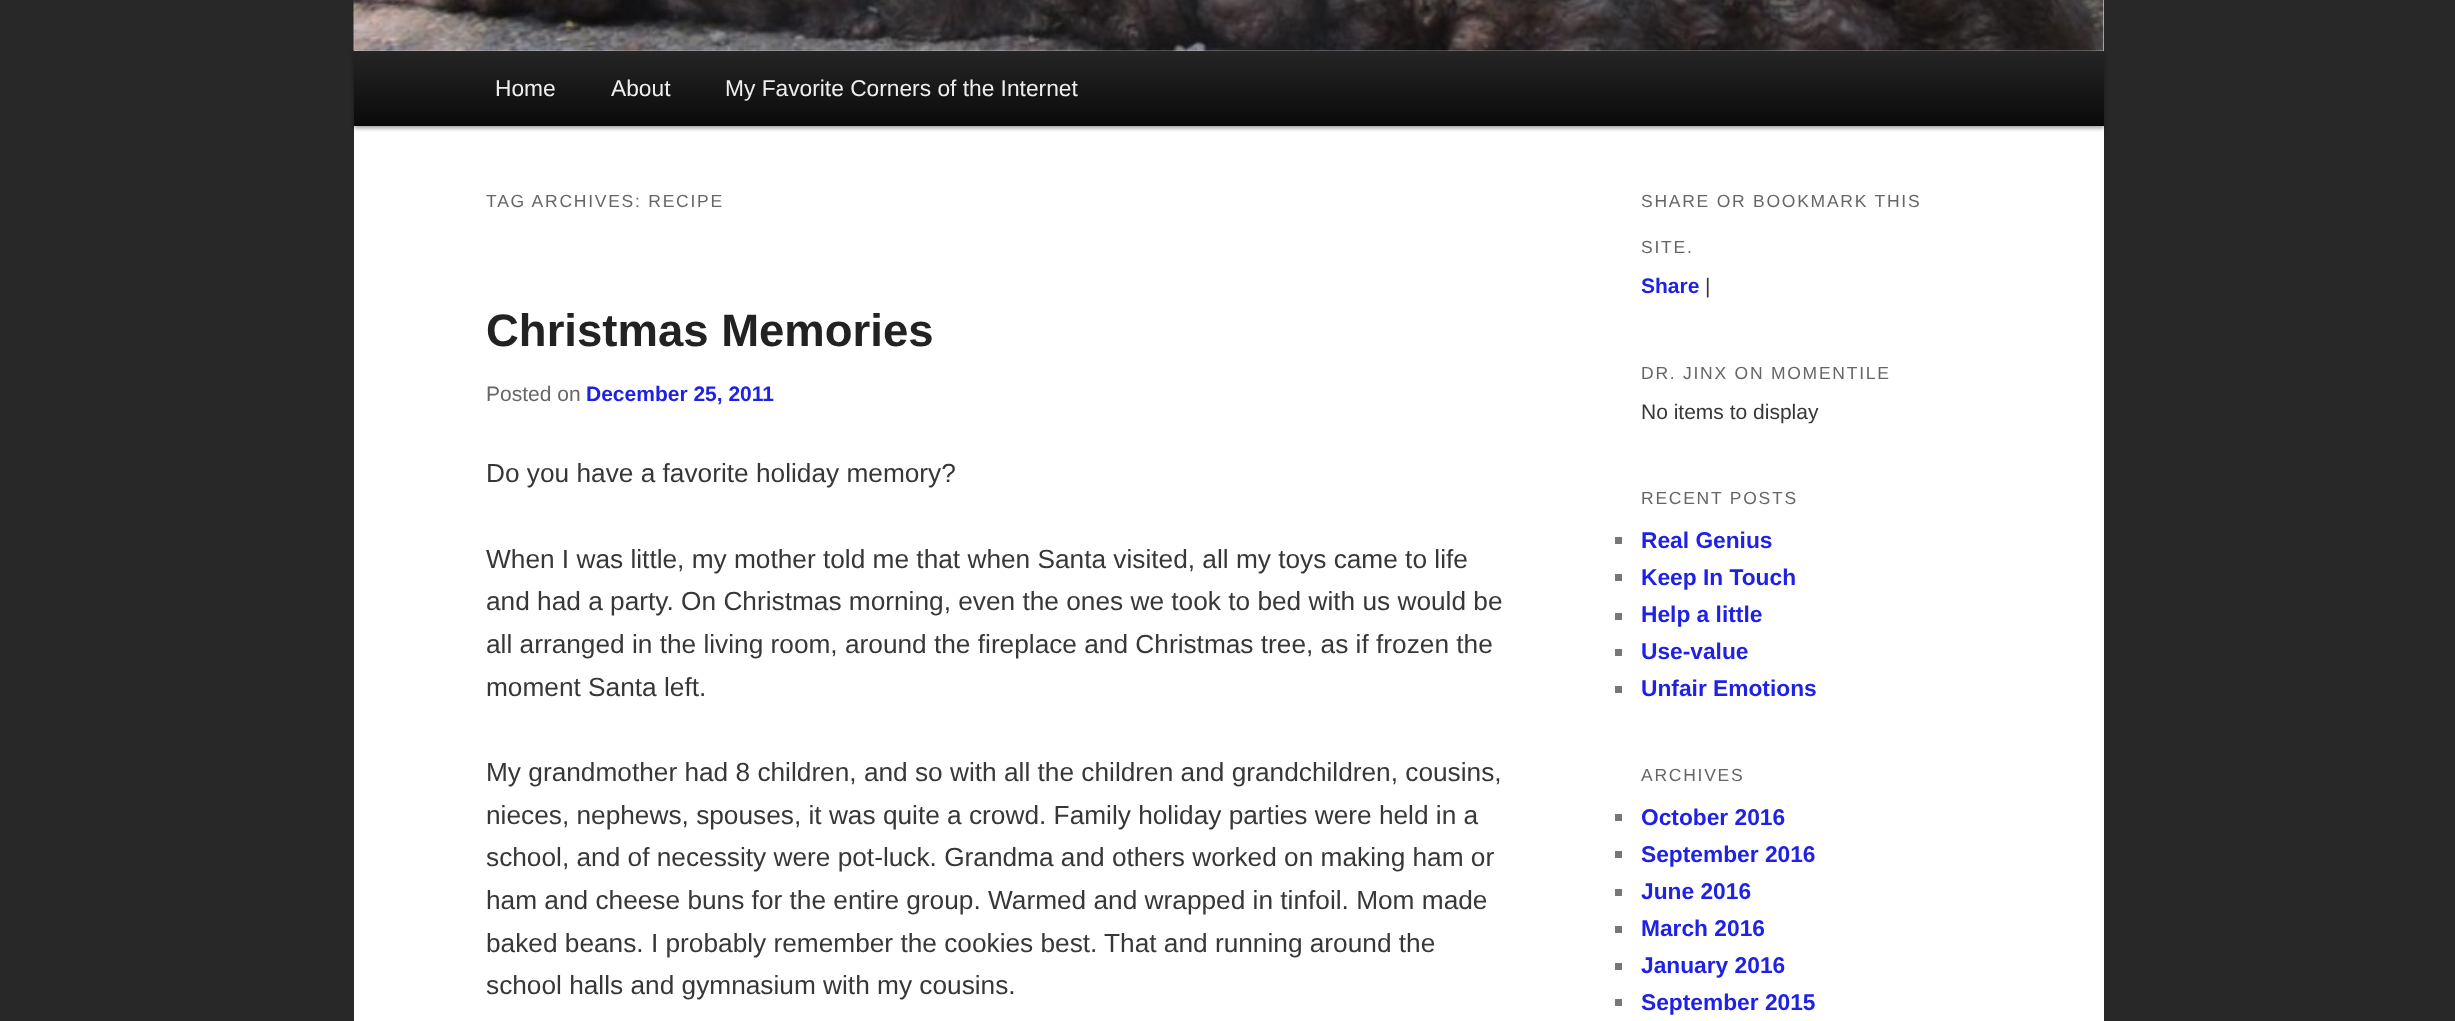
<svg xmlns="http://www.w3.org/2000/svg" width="2455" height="1021">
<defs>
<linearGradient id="g1" gradientUnits="userSpaceOnUse" x1="1229" y1="51" x2="1229" y2="126"><stop offset="0" stop-color="#252525"/><stop offset="1" stop-color="#0a0a0a"/></linearGradient>
</defs>
<rect width="100%" height="100%" fill="#282828"/>
<rect x="354" width="1750" height="1021" fill="#fff"/>
<rect x="354" y="53" width="1750" height="75" fill="#00000066" filter="blur(2px)"/>
<image x="353" y="0" width="1751" height="51" href="media/1.png"/>
<rect x="354" y="51" width="1750" height="75" fill="url(#g1)"/>
<text x="495" y="96" style="font-family:Liberation Sans;font-size:22.75px;fill:#eee">Home</text>
<text x="611" y="96" style="font-family:Liberation Sans;font-size:22.75px;fill:#eee">About</text>
<text x="725" y="96" style="font-family:Liberation Sans;font-size:22.75px;fill:#eee">My Favorite Corners of the Internet</text>
<text x="486" y="207" style="font-family:Liberation Sans;font-size:17.5px;letter-spacing:1.75px;fill:#666">TAG ARCHIVES: RECIPE</text>
<text x="486" y="346" style="font-family:Liberation Sans;font-size:45.5px;font-weight:bold;fill:#222">Christmas Memories</text>
<text x="486" y="401" style="font-family:Liberation Sans;font-size:21px;fill:#666">Posted on</text>
<text x="586" y="401" style="font-family:Liberation Sans;font-size:21px;font-weight:bold;fill:#1f22e4">December 25, 2011</text>
<text x="486" y="482" style="font-family:Liberation Sans;font-size:26.25px;fill:#373737">Do you have a favorite holiday memory?</text>
<text x="486" y="568" style="font-family:Liberation Sans;font-size:26.25px;fill:#373737">When I was little, my mother told me that when Santa visited, all my toys came to life</text>
<text x="486" y="610" style="font-family:Liberation Sans;font-size:26.25px;fill:#373737">and had a party. On Christmas morning, even the ones we took to bed with us would be</text>
<text x="486" y="653" style="font-family:Liberation Sans;font-size:26.25px;fill:#373737">all arranged in the living room, around the fireplace and Christmas tree, as if frozen the</text>
<text x="486" y="696" style="font-family:Liberation Sans;font-size:26.25px;fill:#373737">moment Santa left.</text>
<text x="486" y="781" style="font-family:Liberation Sans;font-size:26.25px;fill:#373737">My grandmother had 8 children, and so with all the children and grandchildren, cousins,</text>
<text x="486" y="824" style="font-family:Liberation Sans;font-size:26.25px;fill:#373737">nieces, nephews, spouses, it was quite a crowd. Family holiday parties were held in a</text>
<text x="486" y="866" style="font-family:Liberation Sans;font-size:26.25px;fill:#373737">school, and of necessity were pot-luck. Grandma and others worked on making ham or</text>
<text x="486" y="909" style="font-family:Liberation Sans;font-size:26.25px;fill:#373737">ham and cheese buns for the entire group. Warmed and wrapped in tinfoil. Mom made</text>
<text x="486" y="952" style="font-family:Liberation Sans;font-size:26.25px;fill:#373737">baked beans. I probably remember the cookies best.</text>
<text x="1104" y="952" style="font-family:Liberation Sans;font-size:26.25px;fill:#373737">That and running around the</text>
<text x="486" y="994" style="font-family:Liberation Sans;font-size:26.25px;fill:#373737">school halls and gymnasium with my cousins.</text>
<text x="1641" y="207" style="font-family:Liberation Sans;font-size:17.5px;letter-spacing:1.75px;fill:#666">SHARE OR BOOKMARK THIS</text>
<text x="1641" y="253" style="font-family:Liberation Sans;font-size:17.5px;letter-spacing:1.75px;fill:#666">SITE.</text>
<text x="1641" y="293" style="font-family:Liberation Sans;font-size:21px;font-weight:bold;fill:#1f22e4">Share</text>
<text x="1705" y="293" style="font-family:Liberation Sans;font-size:21px;fill:#373737">|</text>
<text x="1641" y="379" style="font-family:Liberation Sans;font-size:17.5px;letter-spacing:1.75px;fill:#666">DR. JINX ON MOMENTILE</text>
<text x="1641" y="419" style="font-family:Liberation Sans;font-size:21px;fill:#373737">No items to display</text>
<text x="1641" y="504" style="font-family:Liberation Sans;font-size:17.5px;letter-spacing:1.75px;fill:#666">RECENT POSTS</text>
<rect x="1615" y="537" width="7" height="7" fill="#777"/>
<text x="1641" y="548" style="font-family:Liberation Sans;font-size:22.75px;font-weight:bold;fill:#1f22e4">Real Genius</text>
<rect x="1615" y="574" width="7" height="7" fill="#777"/>
<text x="1641" y="585" style="font-family:Liberation Sans;font-size:22.75px;font-weight:bold;fill:#1f22e4">Keep In Touch</text>
<rect x="1615" y="613" width="7" height="7" fill="#777"/>
<text x="1641" y="622" style="font-family:Liberation Sans;font-size:22.75px;font-weight:bold;fill:#1f22e4">Help a little</text>
<rect x="1615" y="649" width="7" height="7" fill="#777"/>
<text x="1641" y="659" style="font-family:Liberation Sans;font-size:22.75px;font-weight:bold;fill:#1f22e4">Use-value</text>
<rect x="1615" y="686" width="7" height="7" fill="#777"/>
<text x="1641" y="696" style="font-family:Liberation Sans;font-size:22.75px;font-weight:bold;fill:#1f22e4">Unfair Emotions</text>
<text x="1641" y="781" style="font-family:Liberation Sans;font-size:17.5px;letter-spacing:1.75px;fill:#666">ARCHIVES</text>
<rect x="1615" y="814" width="7" height="7" fill="#777"/>
<text x="1641" y="825" style="font-family:Liberation Sans;font-size:22.75px;font-weight:bold;fill:#1f22e4">October 2016</text>
<rect x="1615" y="851" width="7" height="7" fill="#777"/>
<text x="1641" y="862" style="font-family:Liberation Sans;font-size:22.75px;font-weight:bold;fill:#1f22e4">September 2016</text>
<rect x="1615" y="889" width="7" height="7" fill="#777"/>
<text x="1641" y="899" style="font-family:Liberation Sans;font-size:22.75px;font-weight:bold;fill:#1f22e4">June 2016</text>
<rect x="1615" y="926" width="7" height="7" fill="#777"/>
<text x="1641" y="936" style="font-family:Liberation Sans;font-size:22.75px;font-weight:bold;fill:#1f22e4">March 2016</text>
<rect x="1615" y="963" width="7" height="7" fill="#777"/>
<text x="1641" y="973" style="font-family:Liberation Sans;font-size:22.75px;font-weight:bold;fill:#1f22e4">January 2016</text>
<rect x="1615" y="999" width="7" height="7" fill="#777"/>
<text x="1641" y="1010" style="font-family:Liberation Sans;font-size:22.75px;font-weight:bold;fill:#1f22e4">September 2015</text>
</svg>
